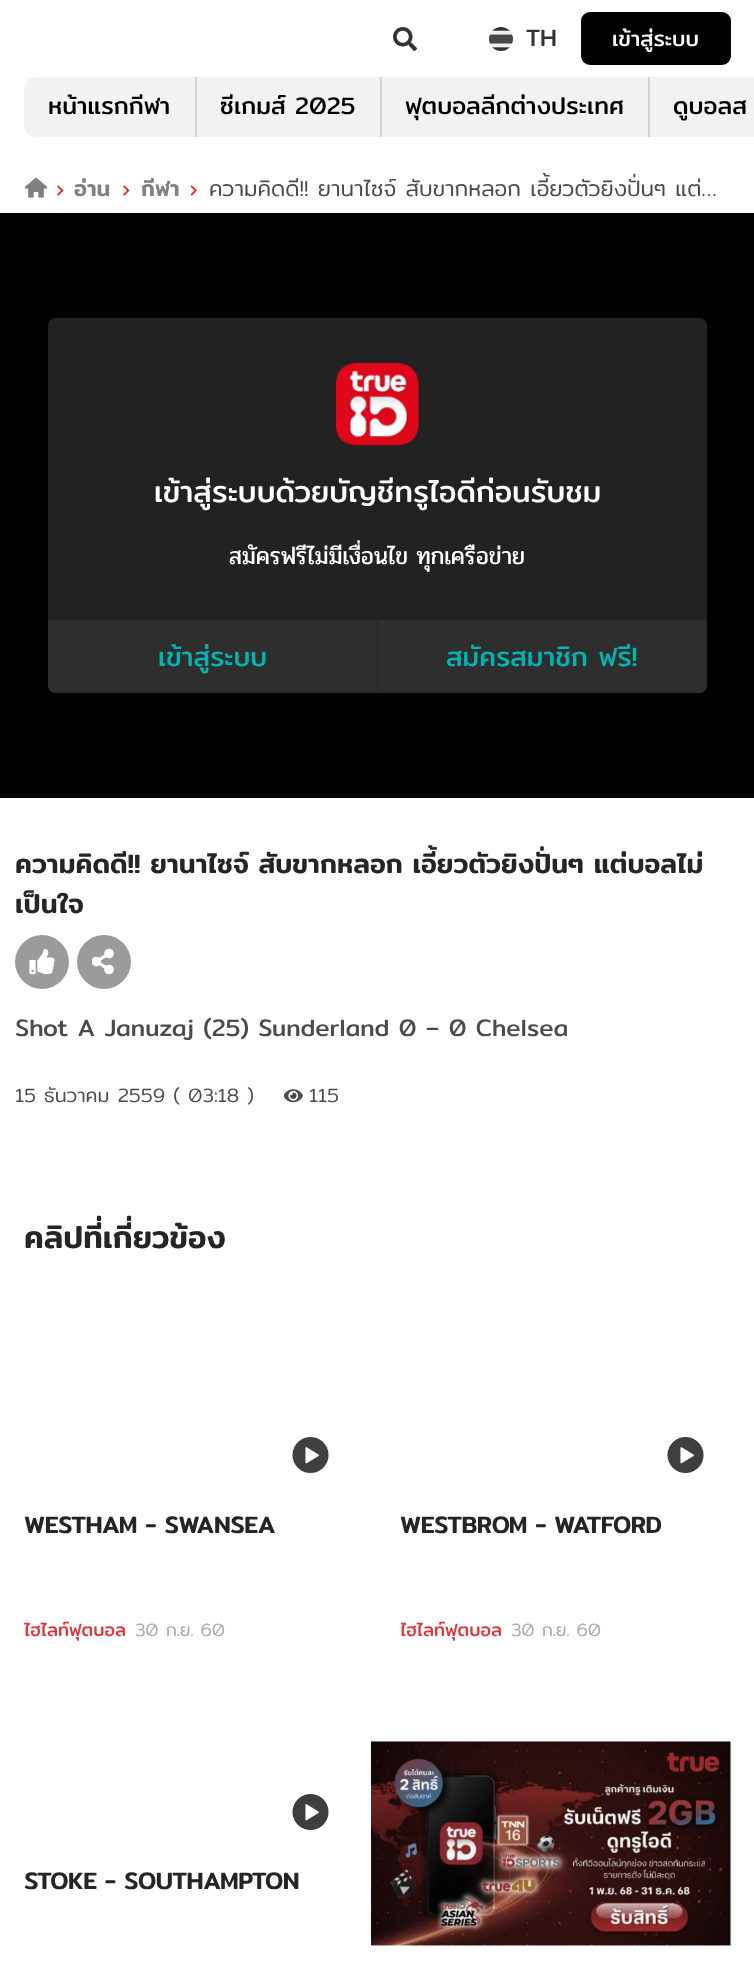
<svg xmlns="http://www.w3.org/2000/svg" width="754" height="1969">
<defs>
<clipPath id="clip1"><rect x="15" y="837" width="725" height="90"/></clipPath>
<clipPath id="clip2"><rect x="401" y="1290" width="315" height="357" rx="8"/></clipPath>
</defs>
<rect width="100%" height="100%" fill="#fff"/>
<image x="393" y="27" width="24" height="24" href="media/1.png"/>
<image x="489" y="27" width="24" height="24" href="media/2.png"/>
<text x="526" y="46" style="font-family:Mitr;font-size:24px;fill:#333">TH</text>
<rect x="581" y="12" width="150" height="53" rx="9" fill="#000"/>
<text x="612" y="46" style="font-family:Mitr;font-size:21.5px;fill:#fff">เข้าสู่ระบบ</text>
<path d="M36 77h159v60h-159c-6.5 0-12-5.5-12-12v-36c0-6.5 5.5-12 12-12z" fill="#f2f2f2"/>
<text x="48" y="114" style="font-family:Mitr;font-size:24px;fill:#000">หน้าแรกกีฬา</text>
<rect x="197" y="77" width="183" height="60" fill="#f2f2f2"/>
<rect x="195" y="77" width="2" height="60" fill="#d1d1d1"/>
<text x="220" y="114" style="font-family:Mitr;font-size:24px;fill:#000">ซีเกมส์ 2025</text>
<rect x="382" y="77" width="266" height="60" fill="#f2f2f2"/>
<rect x="380" y="77" width="2" height="60" fill="#d1d1d1"/>
<text x="405" y="114" style="font-family:Mitr;font-size:24px;fill:#000">ฟุตบอลลีกต่างประเทศ</text>
<rect x="650" y="77" width="104" height="60" fill="#f2f2f2"/>
<rect x="648" y="77" width="2" height="60" fill="#d1d1d1"/>
<text x="673" y="114" style="font-family:Mitr;font-size:24px;fill:#000">ดูบอลส</text>
<image x="24" y="177" width="24" height="21" href="media/3.png"/>
<image x="57" y="185" width="7" height="11" href="media/4.png"/>
<text x="74" y="196" style="font-family:Mitr;font-size:22.1px;font-weight:500;fill:#818181">อ่าน</text>
<image x="123" y="185" width="7" height="11" href="media/4.png"/>
<text x="141" y="196" style="font-family:Mitr;font-size:22.1px;font-weight:500;fill:#818181">กีฬา</text>
<image x="190" y="185" width="7" height="11" href="media/5.png"/>
<text x="209" y="196" style="font-family:Mitr;font-size:22.1px;font-weight:300;fill:#4b4b4b">ความคิดดี!! ยานาไซจ์ สับขากหลอก เอี้ยวตัวยิงปั่นๆ แต่…</text>
<rect y="213" width="754" height="585" fill="#000"/>
<rect x="48" y="318" width="659" height="375" rx="8" fill="#222"/>
<image x="336" y="363" width="83" height="83" href="media/6.png"/>
<text x="154" y="502" style="font-family:Mitr;font-size:30px;fill:#fff">เข้าสู่ระบบด้วยบัญชีทรูไอดีก่อนรับชม</text>
<text x="229" y="564" style="font-family:Pridi;font-size:24px;fill:#fff">สมัครฟรีไม่มีเงื่อนไข ทุกเครือข่าย</text>
<path d="M48 620h330v73h-322c-4.5 0-8-3.5-8-8z" fill="#2e2e2e"/>
<rect x="377" y="620" width="1" height="73" fill="#222"/>
<text x="158" y="666" style="font-family:Mitr;font-size:27px;fill:#00b4b1">เข้าสู่ระบบ</text>
<path d="M378 620h329v65c0 4.5-3.5 8-8 8h-321z" fill="#2e2e2e"/>
<text x="446" y="666" style="font-family:Mitr;font-size:27px;fill:#00b4b1">สมัครสมาชิก ฟรี!</text>
<text x="15" y="873" style="font-family:Mitr;font-size:27px;font-weight:500;fill:#252525">ความคิดดี!! ยานาไซจ์ สับขากหลอก เอี้ยวตัวยิงปั่นๆ แต่บอลไม่</text>
<g clip-path="url(#clip1)">
<text x="15" y="913" style="font-family:Mitr;font-size:27px;font-weight:500;fill:#252525">เป็นใจ</text>
</g>
<circle cx="42" cy="962" r="27" fill="#9b9b9b"/>
<image x="29" y="948" width="26" height="27" href="media/7.png"/>
<circle cx="104" cy="962" r="27" fill="#9b9b9b"/>
<image x="92" y="948" width="22" height="27" href="media/8.png"/>
<text x="15" y="1036" style="font-family:Mitr;font-size:24px;fill:#4b4b4b">Shot A Januzaj (25) Sunderland 0 – 0 Chelsea</text>
<text x="15" y="1102" style="font-family:Mitr;font-size:19.5px;font-weight:300;fill:#4b4b4b">15 ธันวาคม 2559 ( 03:18 )</text>
<image x="284" y="1089" width="19" height="14" href="media/9.png"/>
<text x="309" y="1102" style="font-family:Mitr;font-size:19.5px;font-weight:300;fill:#4b4b4b">115</text>
<text x="24" y="1248" style="font-family:Mitr;font-size:31.5px;font-weight:500;fill:#252525">คลิปที่เกี่ยวข้อง</text>
<image x="292" y="1437" width="37" height="36" href="media/10.png"/>
<text x="24" y="1533" style="font-family:Mitr;font-size:24px;font-weight:500;letter-spacing:-0.4px;fill:#252525">WESTHAM - SWANSEA</text>
<text x="24" y="1636" style="font-family:Mitr;font-size:18px;fill:#e53138">ไฮไลท์ฟุตบอล</text>
<text x="135" y="1636" style="font-family:Mitr;font-size:18px;font-weight:300;letter-spacing:-0.25px;fill:#a9a9a9">30 ก.ย. 60</text>
<image x="667" y="1437" width="37" height="36" href="media/11.png"/>
<g clip-path="url(#clip2)">
<text x="400" y="1533" style="font-family:Mitr;font-size:24px;font-weight:500;letter-spacing:-0.4px;fill:#252525">WESTBROM - WATFORD</text>
<text x="400" y="1636" style="font-family:Mitr;font-size:18px;fill:#e53138">ไฮไลท์ฟุตบอล</text>
</g>
<text x="511" y="1636" style="font-family:Mitr;font-size:18px;font-weight:300;letter-spacing:-0.25px;fill:#a9a9a9">30 ก.ย. 60</text>
<image x="292" y="1794" width="37" height="36" href="media/10.png"/>
<text x="24" y="1889" style="font-family:Mitr;font-size:24px;font-weight:500;letter-spacing:-0.4px;fill:#252525">STOKE - SOUTHAMPTON</text>
<image x="371" y="1741" width="360" height="205" href="media/12.png"/>
</svg>
